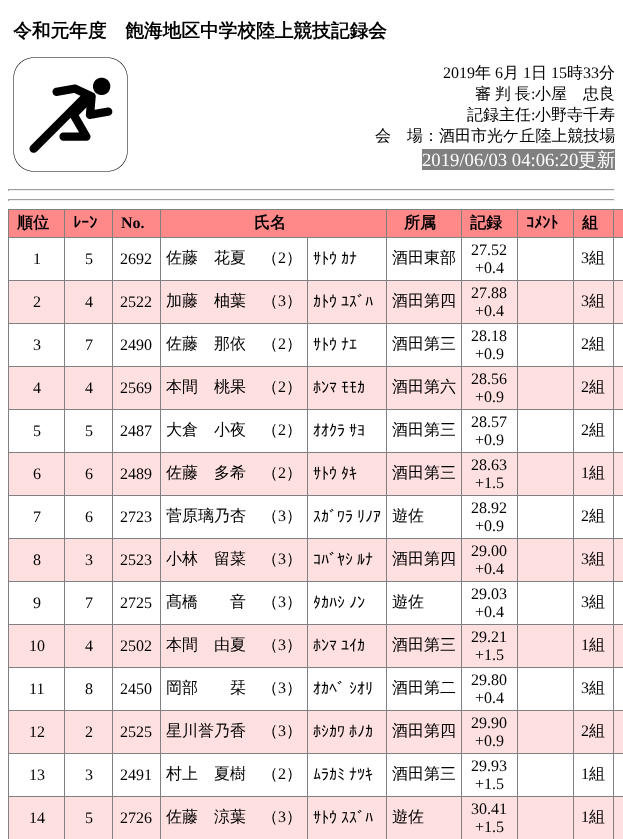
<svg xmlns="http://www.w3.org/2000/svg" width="623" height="839">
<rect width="100%" height="100%" fill="#fff"/>
<text x="13" y="37" style="font-family:WenQuanYi Zen Hei;font-size:18.7px;font-weight:bold;fill:#000">令和元年度　飽海地区中学校陸上競技記録会</text>
<image x="13" y="57" width="115" height="115" href="media/1.png"/>
<text x="443" y="78" style="font-family:Liberation Serif;font-size:16px;fill:#000">2019</text>
<text x="475" y="78" style="font-family:WenQuanYi Zen Hei;font-size:16px;font-weight:500;fill:#000">年</text>
<text x="495" y="78" style="font-family:Liberation Serif;font-size:16px;fill:#000">6</text>
<text x="503" y="78" style="font-family:WenQuanYi Zen Hei;font-size:16px;font-weight:500;fill:#000">月</text>
<text x="523" y="78" style="font-family:Liberation Serif;font-size:16px;fill:#000">1</text>
<text x="531" y="78" style="font-family:WenQuanYi Zen Hei;font-size:16px;font-weight:500;fill:#000">日</text>
<text x="551" y="78" style="font-family:Liberation Serif;font-size:16px;fill:#000">15</text>
<text x="567" y="78" style="font-family:WenQuanYi Zen Hei;font-size:16px;font-weight:500;fill:#000">時</text>
<text x="583" y="78" style="font-family:Liberation Serif;font-size:16px;fill:#000">33</text>
<text x="599" y="78" style="font-family:WenQuanYi Zen Hei;font-size:16px;font-weight:500;fill:#000">分</text>
<text x="475" y="99" word-spacing="-1" style="font-family:WenQuanYi Zen Hei;font-size:16px;font-weight:500;fill:#000">審 判 長</text>
<text x="531" y="99" style="font-family:Liberation Serif;font-size:16px;fill:#000">:</text>
<text x="535" y="99" style="font-family:WenQuanYi Zen Hei;font-size:16px;font-weight:500;fill:#000">小屋　忠良</text>
<text x="467" y="120" style="font-family:WenQuanYi Zen Hei;font-size:16px;font-weight:500;fill:#000">記録主任</text>
<text x="531" y="120" style="font-family:Liberation Serif;font-size:16px;fill:#000">:</text>
<text x="535" y="120" style="font-family:WenQuanYi Zen Hei;font-size:16px;font-weight:500;fill:#000">小野寺千寿</text>
<text x="375" y="141" style="font-family:WenQuanYi Zen Hei;font-size:16px;font-weight:500;fill:#000">会　場：酒田市光ケ丘陸上競技場</text>
<rect x="422" y="149" width="193" height="21" fill="#808080"/>
<text x="422" y="166" style="font-family:Liberation Serif;font-size:18.7px;fill:#fff">2019/06/03 04:06:20</text>
<text x="578" y="166" style="font-family:WenQuanYi Zen Hei;font-size:18.7px;font-weight:500;fill:#fff">更新</text>
<rect x="8" y="189" width="607" height="1" fill="#9f9f9f"/>
<rect x="614" y="189" width="1" height="2" fill="#eee"/>
<rect x="8" y="190" width="607" height="1" fill="#eee"/>
<rect x="8" y="189" width="1" height="2" fill="#9f9f9f"/>
<rect x="8" y="199" width="607" height="1" fill="#9f9f9f"/>
<rect x="614" y="199" width="1" height="2" fill="#eee"/>
<rect x="8" y="200" width="607" height="1" fill="#eee"/>
<rect x="8" y="199" width="1" height="2" fill="#9f9f9f"/>
<rect x="8" y="209" width="615" height="1" fill="#808080"/>
<rect x="8" y="209" width="1" height="630" fill="#808080"/>
<rect x="9" y="210" width="55" height="27" fill="#f88"/>
<rect x="9" y="281" width="614" height="42" fill="#ffe0e0"/>
<rect x="9" y="367" width="614" height="42" fill="#ffe0e0"/>
<rect x="9" y="453" width="614" height="42" fill="#ffe0e0"/>
<rect x="9" y="539" width="614" height="42" fill="#ffe0e0"/>
<rect x="9" y="625" width="614" height="42" fill="#ffe0e0"/>
<rect x="9" y="711" width="614" height="42" fill="#ffe0e0"/>
<rect x="9" y="797" width="614" height="42" fill="#ffe0e0"/>
<rect x="613" y="796" width="1" height="43" fill="#808080"/>
<rect x="613" y="796" width="10" height="1" fill="#808080"/>
<rect x="613" y="753" width="1" height="44" fill="#808080"/>
<rect x="613" y="753" width="10" height="1" fill="#808080"/>
<rect x="613" y="710" width="1" height="44" fill="#808080"/>
<rect x="613" y="710" width="10" height="1" fill="#808080"/>
<rect x="613" y="667" width="1" height="44" fill="#808080"/>
<rect x="613" y="667" width="10" height="1" fill="#808080"/>
<rect x="613" y="624" width="1" height="44" fill="#808080"/>
<rect x="613" y="624" width="10" height="1" fill="#808080"/>
<rect x="613" y="581" width="1" height="44" fill="#808080"/>
<rect x="613" y="581" width="10" height="1" fill="#808080"/>
<rect x="613" y="538" width="1" height="44" fill="#808080"/>
<rect x="613" y="538" width="10" height="1" fill="#808080"/>
<rect x="613" y="495" width="1" height="44" fill="#808080"/>
<rect x="613" y="495" width="10" height="1" fill="#808080"/>
<rect x="613" y="452" width="1" height="44" fill="#808080"/>
<rect x="613" y="452" width="10" height="1" fill="#808080"/>
<rect x="613" y="409" width="1" height="44" fill="#808080"/>
<rect x="613" y="409" width="10" height="1" fill="#808080"/>
<rect x="613" y="366" width="1" height="44" fill="#808080"/>
<rect x="613" y="366" width="10" height="1" fill="#808080"/>
<rect x="613" y="323" width="1" height="44" fill="#808080"/>
<rect x="613" y="323" width="10" height="1" fill="#808080"/>
<rect x="613" y="280" width="1" height="44" fill="#808080"/>
<rect x="613" y="280" width="10" height="1" fill="#808080"/>
<rect x="613" y="237" width="1" height="44" fill="#808080"/>
<rect x="613" y="237" width="10" height="1" fill="#808080"/>
<rect x="613" y="209" width="1" height="29" fill="#808080"/>
<rect x="573" y="796" width="1" height="43" fill="#808080"/>
<rect x="573" y="796" width="41" height="1" fill="#808080"/>
<rect x="573" y="753" width="1" height="44" fill="#808080"/>
<rect x="573" y="753" width="41" height="1" fill="#808080"/>
<rect x="573" y="710" width="1" height="44" fill="#808080"/>
<rect x="573" y="710" width="41" height="1" fill="#808080"/>
<rect x="573" y="667" width="1" height="44" fill="#808080"/>
<rect x="573" y="667" width="41" height="1" fill="#808080"/>
<rect x="573" y="624" width="1" height="44" fill="#808080"/>
<rect x="573" y="624" width="41" height="1" fill="#808080"/>
<rect x="573" y="581" width="1" height="44" fill="#808080"/>
<rect x="573" y="581" width="41" height="1" fill="#808080"/>
<rect x="573" y="538" width="1" height="44" fill="#808080"/>
<rect x="573" y="538" width="41" height="1" fill="#808080"/>
<rect x="573" y="495" width="1" height="44" fill="#808080"/>
<rect x="573" y="495" width="41" height="1" fill="#808080"/>
<rect x="573" y="452" width="1" height="44" fill="#808080"/>
<rect x="573" y="452" width="41" height="1" fill="#808080"/>
<rect x="573" y="409" width="1" height="44" fill="#808080"/>
<rect x="573" y="409" width="41" height="1" fill="#808080"/>
<rect x="573" y="366" width="1" height="44" fill="#808080"/>
<rect x="573" y="366" width="41" height="1" fill="#808080"/>
<rect x="573" y="323" width="1" height="44" fill="#808080"/>
<rect x="573" y="323" width="41" height="1" fill="#808080"/>
<rect x="573" y="280" width="1" height="44" fill="#808080"/>
<rect x="573" y="280" width="41" height="1" fill="#808080"/>
<rect x="573" y="237" width="1" height="44" fill="#808080"/>
<rect x="573" y="237" width="41" height="1" fill="#808080"/>
<rect x="573" y="209" width="1" height="29" fill="#808080"/>
<rect x="517" y="796" width="1" height="43" fill="#808080"/>
<rect x="517" y="796" width="57" height="1" fill="#808080"/>
<rect x="517" y="753" width="1" height="44" fill="#808080"/>
<rect x="517" y="753" width="57" height="1" fill="#808080"/>
<rect x="517" y="710" width="1" height="44" fill="#808080"/>
<rect x="517" y="710" width="57" height="1" fill="#808080"/>
<rect x="517" y="667" width="1" height="44" fill="#808080"/>
<rect x="517" y="667" width="57" height="1" fill="#808080"/>
<rect x="517" y="624" width="1" height="44" fill="#808080"/>
<rect x="517" y="624" width="57" height="1" fill="#808080"/>
<rect x="517" y="581" width="1" height="44" fill="#808080"/>
<rect x="517" y="581" width="57" height="1" fill="#808080"/>
<rect x="517" y="538" width="1" height="44" fill="#808080"/>
<rect x="517" y="538" width="57" height="1" fill="#808080"/>
<rect x="517" y="495" width="1" height="44" fill="#808080"/>
<rect x="517" y="495" width="57" height="1" fill="#808080"/>
<rect x="517" y="452" width="1" height="44" fill="#808080"/>
<rect x="517" y="452" width="57" height="1" fill="#808080"/>
<rect x="517" y="409" width="1" height="44" fill="#808080"/>
<rect x="517" y="409" width="57" height="1" fill="#808080"/>
<rect x="517" y="366" width="1" height="44" fill="#808080"/>
<rect x="517" y="366" width="57" height="1" fill="#808080"/>
<rect x="517" y="323" width="1" height="44" fill="#808080"/>
<rect x="517" y="323" width="57" height="1" fill="#808080"/>
<rect x="517" y="280" width="1" height="44" fill="#808080"/>
<rect x="517" y="280" width="57" height="1" fill="#808080"/>
<rect x="517" y="237" width="1" height="44" fill="#808080"/>
<rect x="517" y="237" width="57" height="1" fill="#808080"/>
<rect x="517" y="209" width="1" height="29" fill="#808080"/>
<rect x="461" y="796" width="1" height="43" fill="#808080"/>
<rect x="461" y="796" width="57" height="1" fill="#808080"/>
<rect x="461" y="753" width="1" height="44" fill="#808080"/>
<rect x="461" y="753" width="57" height="1" fill="#808080"/>
<rect x="461" y="710" width="1" height="44" fill="#808080"/>
<rect x="461" y="710" width="57" height="1" fill="#808080"/>
<rect x="461" y="667" width="1" height="44" fill="#808080"/>
<rect x="461" y="667" width="57" height="1" fill="#808080"/>
<rect x="461" y="624" width="1" height="44" fill="#808080"/>
<rect x="461" y="624" width="57" height="1" fill="#808080"/>
<rect x="461" y="581" width="1" height="44" fill="#808080"/>
<rect x="461" y="581" width="57" height="1" fill="#808080"/>
<rect x="461" y="538" width="1" height="44" fill="#808080"/>
<rect x="461" y="538" width="57" height="1" fill="#808080"/>
<rect x="461" y="495" width="1" height="44" fill="#808080"/>
<rect x="461" y="495" width="57" height="1" fill="#808080"/>
<rect x="461" y="452" width="1" height="44" fill="#808080"/>
<rect x="461" y="452" width="57" height="1" fill="#808080"/>
<rect x="461" y="409" width="1" height="44" fill="#808080"/>
<rect x="461" y="409" width="57" height="1" fill="#808080"/>
<rect x="461" y="366" width="1" height="44" fill="#808080"/>
<rect x="461" y="366" width="57" height="1" fill="#808080"/>
<rect x="461" y="323" width="1" height="44" fill="#808080"/>
<rect x="461" y="323" width="57" height="1" fill="#808080"/>
<rect x="461" y="280" width="1" height="44" fill="#808080"/>
<rect x="461" y="280" width="57" height="1" fill="#808080"/>
<rect x="461" y="237" width="1" height="44" fill="#808080"/>
<rect x="461" y="237" width="57" height="1" fill="#808080"/>
<rect x="461" y="209" width="1" height="29" fill="#808080"/>
<rect x="386" y="796" width="1" height="43" fill="#808080"/>
<rect x="386" y="796" width="76" height="1" fill="#808080"/>
<rect x="386" y="753" width="1" height="44" fill="#808080"/>
<rect x="386" y="753" width="76" height="1" fill="#808080"/>
<rect x="386" y="710" width="1" height="44" fill="#808080"/>
<rect x="386" y="710" width="76" height="1" fill="#808080"/>
<rect x="386" y="667" width="1" height="44" fill="#808080"/>
<rect x="386" y="667" width="76" height="1" fill="#808080"/>
<rect x="386" y="624" width="1" height="44" fill="#808080"/>
<rect x="386" y="624" width="76" height="1" fill="#808080"/>
<rect x="386" y="581" width="1" height="44" fill="#808080"/>
<rect x="386" y="581" width="76" height="1" fill="#808080"/>
<rect x="386" y="538" width="1" height="44" fill="#808080"/>
<rect x="386" y="538" width="76" height="1" fill="#808080"/>
<rect x="386" y="495" width="1" height="44" fill="#808080"/>
<rect x="386" y="495" width="76" height="1" fill="#808080"/>
<rect x="386" y="452" width="1" height="44" fill="#808080"/>
<rect x="386" y="452" width="76" height="1" fill="#808080"/>
<rect x="386" y="409" width="1" height="44" fill="#808080"/>
<rect x="386" y="409" width="76" height="1" fill="#808080"/>
<rect x="386" y="366" width="1" height="44" fill="#808080"/>
<rect x="386" y="366" width="76" height="1" fill="#808080"/>
<rect x="386" y="323" width="1" height="44" fill="#808080"/>
<rect x="386" y="323" width="76" height="1" fill="#808080"/>
<rect x="386" y="280" width="1" height="44" fill="#808080"/>
<rect x="386" y="280" width="76" height="1" fill="#808080"/>
<rect x="386" y="237" width="1" height="44" fill="#808080"/>
<rect x="386" y="237" width="76" height="1" fill="#808080"/>
<rect x="386" y="209" width="1" height="29" fill="#808080"/>
<rect x="307" y="796" width="1" height="43" fill="#808080"/>
<rect x="307" y="796" width="80" height="1" fill="#808080"/>
<rect x="307" y="753" width="1" height="44" fill="#808080"/>
<rect x="307" y="753" width="80" height="1" fill="#808080"/>
<rect x="307" y="710" width="1" height="44" fill="#808080"/>
<rect x="307" y="710" width="80" height="1" fill="#808080"/>
<rect x="307" y="667" width="1" height="44" fill="#808080"/>
<rect x="307" y="667" width="80" height="1" fill="#808080"/>
<rect x="307" y="624" width="1" height="44" fill="#808080"/>
<rect x="307" y="624" width="80" height="1" fill="#808080"/>
<rect x="307" y="581" width="1" height="44" fill="#808080"/>
<rect x="307" y="581" width="80" height="1" fill="#808080"/>
<rect x="307" y="538" width="1" height="44" fill="#808080"/>
<rect x="307" y="538" width="80" height="1" fill="#808080"/>
<rect x="307" y="495" width="1" height="44" fill="#808080"/>
<rect x="307" y="495" width="80" height="1" fill="#808080"/>
<rect x="307" y="452" width="1" height="44" fill="#808080"/>
<rect x="307" y="452" width="80" height="1" fill="#808080"/>
<rect x="307" y="409" width="1" height="44" fill="#808080"/>
<rect x="307" y="409" width="80" height="1" fill="#808080"/>
<rect x="307" y="366" width="1" height="44" fill="#808080"/>
<rect x="307" y="366" width="80" height="1" fill="#808080"/>
<rect x="307" y="323" width="1" height="44" fill="#808080"/>
<rect x="307" y="323" width="80" height="1" fill="#808080"/>
<rect x="307" y="280" width="1" height="44" fill="#808080"/>
<rect x="307" y="280" width="80" height="1" fill="#808080"/>
<rect x="307" y="237" width="1" height="44" fill="#808080"/>
<rect x="160" y="796" width="1" height="43" fill="#808080"/>
<rect x="160" y="796" width="148" height="1" fill="#808080"/>
<rect x="160" y="753" width="1" height="44" fill="#808080"/>
<rect x="160" y="753" width="148" height="1" fill="#808080"/>
<rect x="160" y="710" width="1" height="44" fill="#808080"/>
<rect x="160" y="710" width="148" height="1" fill="#808080"/>
<rect x="160" y="667" width="1" height="44" fill="#808080"/>
<rect x="160" y="667" width="148" height="1" fill="#808080"/>
<rect x="160" y="624" width="1" height="44" fill="#808080"/>
<rect x="160" y="624" width="148" height="1" fill="#808080"/>
<rect x="160" y="581" width="1" height="44" fill="#808080"/>
<rect x="160" y="581" width="148" height="1" fill="#808080"/>
<rect x="160" y="538" width="1" height="44" fill="#808080"/>
<rect x="160" y="538" width="148" height="1" fill="#808080"/>
<rect x="160" y="495" width="1" height="44" fill="#808080"/>
<rect x="160" y="495" width="148" height="1" fill="#808080"/>
<rect x="160" y="452" width="1" height="44" fill="#808080"/>
<rect x="160" y="452" width="148" height="1" fill="#808080"/>
<rect x="160" y="409" width="1" height="44" fill="#808080"/>
<rect x="160" y="409" width="148" height="1" fill="#808080"/>
<rect x="160" y="366" width="1" height="44" fill="#808080"/>
<rect x="160" y="366" width="148" height="1" fill="#808080"/>
<rect x="160" y="323" width="1" height="44" fill="#808080"/>
<rect x="160" y="323" width="148" height="1" fill="#808080"/>
<rect x="160" y="280" width="1" height="44" fill="#808080"/>
<rect x="160" y="280" width="148" height="1" fill="#808080"/>
<rect x="160" y="237" width="1" height="44" fill="#808080"/>
<rect x="160" y="237" width="227" height="1" fill="#808080"/>
<rect x="160" y="209" width="1" height="29" fill="#808080"/>
<rect x="112" y="796" width="1" height="43" fill="#808080"/>
<rect x="112" y="796" width="49" height="1" fill="#808080"/>
<rect x="112" y="753" width="1" height="44" fill="#808080"/>
<rect x="112" y="753" width="49" height="1" fill="#808080"/>
<rect x="112" y="710" width="1" height="44" fill="#808080"/>
<rect x="112" y="710" width="49" height="1" fill="#808080"/>
<rect x="112" y="667" width="1" height="44" fill="#808080"/>
<rect x="112" y="667" width="49" height="1" fill="#808080"/>
<rect x="112" y="624" width="1" height="44" fill="#808080"/>
<rect x="112" y="624" width="49" height="1" fill="#808080"/>
<rect x="112" y="581" width="1" height="44" fill="#808080"/>
<rect x="112" y="581" width="49" height="1" fill="#808080"/>
<rect x="112" y="538" width="1" height="44" fill="#808080"/>
<rect x="112" y="538" width="49" height="1" fill="#808080"/>
<rect x="112" y="495" width="1" height="44" fill="#808080"/>
<rect x="112" y="495" width="49" height="1" fill="#808080"/>
<rect x="112" y="452" width="1" height="44" fill="#808080"/>
<rect x="112" y="452" width="49" height="1" fill="#808080"/>
<rect x="112" y="409" width="1" height="44" fill="#808080"/>
<rect x="112" y="409" width="49" height="1" fill="#808080"/>
<rect x="112" y="366" width="1" height="44" fill="#808080"/>
<rect x="112" y="366" width="49" height="1" fill="#808080"/>
<rect x="112" y="323" width="1" height="44" fill="#808080"/>
<rect x="112" y="323" width="49" height="1" fill="#808080"/>
<rect x="112" y="280" width="1" height="44" fill="#808080"/>
<rect x="112" y="280" width="49" height="1" fill="#808080"/>
<rect x="112" y="237" width="1" height="44" fill="#808080"/>
<rect x="112" y="237" width="49" height="1" fill="#808080"/>
<rect x="112" y="209" width="1" height="29" fill="#808080"/>
<rect x="64" y="796" width="1" height="43" fill="#808080"/>
<rect x="64" y="796" width="49" height="1" fill="#808080"/>
<rect x="64" y="753" width="1" height="44" fill="#808080"/>
<rect x="64" y="753" width="49" height="1" fill="#808080"/>
<rect x="64" y="710" width="1" height="44" fill="#808080"/>
<rect x="64" y="710" width="49" height="1" fill="#808080"/>
<rect x="64" y="667" width="1" height="44" fill="#808080"/>
<rect x="64" y="667" width="49" height="1" fill="#808080"/>
<rect x="64" y="624" width="1" height="44" fill="#808080"/>
<rect x="64" y="624" width="49" height="1" fill="#808080"/>
<rect x="64" y="581" width="1" height="44" fill="#808080"/>
<rect x="64" y="581" width="49" height="1" fill="#808080"/>
<rect x="64" y="538" width="1" height="44" fill="#808080"/>
<rect x="64" y="538" width="49" height="1" fill="#808080"/>
<rect x="64" y="495" width="1" height="44" fill="#808080"/>
<rect x="64" y="495" width="49" height="1" fill="#808080"/>
<rect x="64" y="452" width="1" height="44" fill="#808080"/>
<rect x="64" y="452" width="49" height="1" fill="#808080"/>
<rect x="64" y="409" width="1" height="44" fill="#808080"/>
<rect x="64" y="409" width="49" height="1" fill="#808080"/>
<rect x="64" y="366" width="1" height="44" fill="#808080"/>
<rect x="64" y="366" width="49" height="1" fill="#808080"/>
<rect x="64" y="323" width="1" height="44" fill="#808080"/>
<rect x="64" y="323" width="49" height="1" fill="#808080"/>
<rect x="64" y="280" width="1" height="44" fill="#808080"/>
<rect x="64" y="280" width="49" height="1" fill="#808080"/>
<rect x="64" y="237" width="1" height="44" fill="#808080"/>
<rect x="64" y="237" width="49" height="1" fill="#808080"/>
<rect x="64" y="209" width="1" height="29" fill="#808080"/>
<rect x="8" y="237" width="57" height="1" fill="#808080"/>
<text x="17" y="228" style="font-family:WenQuanYi Zen Hei;font-size:16px;font-weight:bold;fill:#000">順位</text>
<rect x="65" y="210" width="47" height="27" fill="#f88"/>
<text x="73" y="228" style="font-family:IPAGothic;font-size:16px;font-weight:bold;fill:#000">ﾚｰﾝ</text>
<rect x="113" y="210" width="47" height="27" fill="#f88"/>
<text x="121" y="228" style="font-family:Liberation Serif;font-size:16px;font-weight:bold;fill:#000">No.</text>
<rect x="161" y="210" width="225" height="27" fill="#f88"/>
<text x="254" y="228" style="font-family:WenQuanYi Zen Hei;font-size:16px;font-weight:bold;fill:#000">氏名</text>
<rect x="387" y="210" width="74" height="27" fill="#f88"/>
<text x="404" y="228" style="font-family:WenQuanYi Zen Hei;font-size:16px;font-weight:bold;fill:#000">所属</text>
<rect x="462" y="210" width="55" height="27" fill="#f88"/>
<text x="470" y="228" style="font-family:WenQuanYi Zen Hei;font-size:16px;font-weight:bold;fill:#000">記録</text>
<rect x="518" y="210" width="55" height="27" fill="#f88"/>
<text x="526" y="228" style="font-family:IPAGothic;font-size:16px;font-weight:bold;fill:#000">ｺﾒﾝﾄ</text>
<rect x="574" y="210" width="39" height="27" fill="#f88"/>
<text x="582" y="228" style="font-family:WenQuanYi Zen Hei;font-size:16px;font-weight:bold;fill:#000">組</text>
<rect x="614" y="210" width="9" height="27" fill="#f88"/>
<rect x="8" y="280" width="57" height="1" fill="#808080"/>
<text x="33" y="264" style="font-family:Liberation Serif;font-size:16px;fill:#000">1</text>
<text x="85" y="264" style="font-family:Liberation Serif;font-size:16px;fill:#000">5</text>
<text x="120" y="264" style="font-family:Liberation Serif;font-size:16px;fill:#000">2692</text>
<text x="166" y="263" style="font-family:WenQuanYi Zen Hei;font-size:16px;font-weight:500;fill:#000">佐藤　花夏　（</text>
<text x="278" y="263" style="font-family:Liberation Serif;font-size:16px;fill:#000">2</text>
<text x="286" y="263" style="font-family:WenQuanYi Zen Hei;font-size:16px;font-weight:500;fill:#000">）</text>
<text x="313" y="264" word-spacing="-4" style="font-family:IPAGothic;font-size:16px;fill:#000">ｻﾄｳ ｶﾅ</text>
<text x="392" y="263" style="font-family:WenQuanYi Zen Hei;font-size:16px;font-weight:500;fill:#000">酒田東部</text>
<text x="471" y="255" style="font-family:Liberation Serif;font-size:16px;fill:#000">27.52</text>
<text x="475" y="273" style="font-family:Liberation Serif;font-size:16px;fill:#000">+0.4</text>
<text x="581" y="263" style="font-family:Liberation Serif;font-size:16px;fill:#000">3</text>
<text x="589" y="263" style="font-family:WenQuanYi Zen Hei;font-size:16px;font-weight:500;fill:#000">組</text>
<rect x="8" y="323" width="57" height="1" fill="#808080"/>
<text x="33" y="307" style="font-family:Liberation Serif;font-size:16px;fill:#000">2</text>
<text x="85" y="307" style="font-family:Liberation Serif;font-size:16px;fill:#000">4</text>
<text x="120" y="307" style="font-family:Liberation Serif;font-size:16px;fill:#000">2522</text>
<text x="166" y="306" style="font-family:WenQuanYi Zen Hei;font-size:16px;font-weight:500;fill:#000">加藤　柚葉　（</text>
<text x="278" y="306" style="font-family:Liberation Serif;font-size:16px;fill:#000">3</text>
<text x="286" y="306" style="font-family:WenQuanYi Zen Hei;font-size:16px;font-weight:500;fill:#000">）</text>
<text x="313" y="307" word-spacing="-4" style="font-family:IPAGothic;font-size:16px;fill:#000">ｶﾄｳ ﾕｽﾞﾊ</text>
<text x="392" y="306" style="font-family:WenQuanYi Zen Hei;font-size:16px;font-weight:500;fill:#000">酒田第四</text>
<text x="471" y="298" style="font-family:Liberation Serif;font-size:16px;fill:#000">27.88</text>
<text x="475" y="316" style="font-family:Liberation Serif;font-size:16px;fill:#000">+0.4</text>
<text x="581" y="306" style="font-family:Liberation Serif;font-size:16px;fill:#000">3</text>
<text x="589" y="306" style="font-family:WenQuanYi Zen Hei;font-size:16px;font-weight:500;fill:#000">組</text>
<rect x="8" y="366" width="57" height="1" fill="#808080"/>
<text x="33" y="350" style="font-family:Liberation Serif;font-size:16px;fill:#000">3</text>
<text x="85" y="350" style="font-family:Liberation Serif;font-size:16px;fill:#000">7</text>
<text x="120" y="350" style="font-family:Liberation Serif;font-size:16px;fill:#000">2490</text>
<text x="166" y="349" style="font-family:WenQuanYi Zen Hei;font-size:16px;font-weight:500;fill:#000">佐藤　那依　（</text>
<text x="278" y="349" style="font-family:Liberation Serif;font-size:16px;fill:#000">2</text>
<text x="286" y="349" style="font-family:WenQuanYi Zen Hei;font-size:16px;font-weight:500;fill:#000">）</text>
<text x="313" y="350" word-spacing="-4" style="font-family:IPAGothic;font-size:16px;fill:#000">ｻﾄｳ ﾅｴ</text>
<text x="392" y="349" style="font-family:WenQuanYi Zen Hei;font-size:16px;font-weight:500;fill:#000">酒田第三</text>
<text x="471" y="341" style="font-family:Liberation Serif;font-size:16px;fill:#000">28.18</text>
<text x="475" y="359" style="font-family:Liberation Serif;font-size:16px;fill:#000">+0.9</text>
<text x="581" y="349" style="font-family:Liberation Serif;font-size:16px;fill:#000">2</text>
<text x="589" y="349" style="font-family:WenQuanYi Zen Hei;font-size:16px;font-weight:500;fill:#000">組</text>
<rect x="8" y="409" width="57" height="1" fill="#808080"/>
<text x="33" y="393" style="font-family:Liberation Serif;font-size:16px;fill:#000">4</text>
<text x="85" y="393" style="font-family:Liberation Serif;font-size:16px;fill:#000">4</text>
<text x="120" y="393" style="font-family:Liberation Serif;font-size:16px;fill:#000">2569</text>
<text x="166" y="392" style="font-family:WenQuanYi Zen Hei;font-size:16px;font-weight:500;fill:#000">本間　桃果　（</text>
<text x="278" y="392" style="font-family:Liberation Serif;font-size:16px;fill:#000">2</text>
<text x="286" y="392" style="font-family:WenQuanYi Zen Hei;font-size:16px;font-weight:500;fill:#000">）</text>
<text x="313" y="393" word-spacing="-4" style="font-family:IPAGothic;font-size:16px;fill:#000">ﾎﾝﾏ ﾓﾓｶ</text>
<text x="392" y="392" style="font-family:WenQuanYi Zen Hei;font-size:16px;font-weight:500;fill:#000">酒田第六</text>
<text x="471" y="384" style="font-family:Liberation Serif;font-size:16px;fill:#000">28.56</text>
<text x="475" y="402" style="font-family:Liberation Serif;font-size:16px;fill:#000">+0.9</text>
<text x="581" y="392" style="font-family:Liberation Serif;font-size:16px;fill:#000">2</text>
<text x="589" y="392" style="font-family:WenQuanYi Zen Hei;font-size:16px;font-weight:500;fill:#000">組</text>
<rect x="8" y="452" width="57" height="1" fill="#808080"/>
<text x="33" y="436" style="font-family:Liberation Serif;font-size:16px;fill:#000">5</text>
<text x="85" y="436" style="font-family:Liberation Serif;font-size:16px;fill:#000">5</text>
<text x="120" y="436" style="font-family:Liberation Serif;font-size:16px;fill:#000">2487</text>
<text x="166" y="435" style="font-family:WenQuanYi Zen Hei;font-size:16px;font-weight:500;fill:#000">大倉　小夜　（</text>
<text x="278" y="435" style="font-family:Liberation Serif;font-size:16px;fill:#000">2</text>
<text x="286" y="435" style="font-family:WenQuanYi Zen Hei;font-size:16px;font-weight:500;fill:#000">）</text>
<text x="313" y="436" word-spacing="-4" style="font-family:IPAGothic;font-size:16px;fill:#000">ｵｵｸﾗ ｻﾖ</text>
<text x="392" y="435" style="font-family:WenQuanYi Zen Hei;font-size:16px;font-weight:500;fill:#000">酒田第三</text>
<text x="471" y="427" style="font-family:Liberation Serif;font-size:16px;fill:#000">28.57</text>
<text x="475" y="445" style="font-family:Liberation Serif;font-size:16px;fill:#000">+0.9</text>
<text x="581" y="435" style="font-family:Liberation Serif;font-size:16px;fill:#000">2</text>
<text x="589" y="435" style="font-family:WenQuanYi Zen Hei;font-size:16px;font-weight:500;fill:#000">組</text>
<rect x="8" y="495" width="57" height="1" fill="#808080"/>
<text x="33" y="479" style="font-family:Liberation Serif;font-size:16px;fill:#000">6</text>
<text x="85" y="479" style="font-family:Liberation Serif;font-size:16px;fill:#000">6</text>
<text x="120" y="479" style="font-family:Liberation Serif;font-size:16px;fill:#000">2489</text>
<text x="166" y="478" style="font-family:WenQuanYi Zen Hei;font-size:16px;font-weight:500;fill:#000">佐藤　多希　（</text>
<text x="278" y="478" style="font-family:Liberation Serif;font-size:16px;fill:#000">2</text>
<text x="286" y="478" style="font-family:WenQuanYi Zen Hei;font-size:16px;font-weight:500;fill:#000">）</text>
<text x="313" y="479" word-spacing="-4" style="font-family:IPAGothic;font-size:16px;fill:#000">ｻﾄｳ ﾀｷ</text>
<text x="392" y="478" style="font-family:WenQuanYi Zen Hei;font-size:16px;font-weight:500;fill:#000">酒田第三</text>
<text x="471" y="470" style="font-family:Liberation Serif;font-size:16px;fill:#000">28.63</text>
<text x="475" y="488" style="font-family:Liberation Serif;font-size:16px;fill:#000">+1.5</text>
<text x="581" y="478" style="font-family:Liberation Serif;font-size:16px;fill:#000">1</text>
<text x="589" y="478" style="font-family:WenQuanYi Zen Hei;font-size:16px;font-weight:500;fill:#000">組</text>
<rect x="8" y="538" width="57" height="1" fill="#808080"/>
<text x="33" y="522" style="font-family:Liberation Serif;font-size:16px;fill:#000">7</text>
<text x="85" y="522" style="font-family:Liberation Serif;font-size:16px;fill:#000">6</text>
<text x="120" y="522" style="font-family:Liberation Serif;font-size:16px;fill:#000">2723</text>
<text x="166" y="521" style="font-family:WenQuanYi Zen Hei;font-size:16px;font-weight:500;fill:#000">菅原璃乃杏　（</text>
<text x="278" y="521" style="font-family:Liberation Serif;font-size:16px;fill:#000">3</text>
<text x="286" y="521" style="font-family:WenQuanYi Zen Hei;font-size:16px;font-weight:500;fill:#000">）</text>
<text x="313" y="522" word-spacing="-4" style="font-family:IPAGothic;font-size:16px;fill:#000">ｽｶﾞﾜﾗ ﾘﾉｱ</text>
<text x="392" y="521" style="font-family:WenQuanYi Zen Hei;font-size:16px;font-weight:500;fill:#000">遊佐</text>
<text x="471" y="513" style="font-family:Liberation Serif;font-size:16px;fill:#000">28.92</text>
<text x="475" y="531" style="font-family:Liberation Serif;font-size:16px;fill:#000">+0.9</text>
<text x="581" y="521" style="font-family:Liberation Serif;font-size:16px;fill:#000">2</text>
<text x="589" y="521" style="font-family:WenQuanYi Zen Hei;font-size:16px;font-weight:500;fill:#000">組</text>
<rect x="8" y="581" width="57" height="1" fill="#808080"/>
<text x="33" y="565" style="font-family:Liberation Serif;font-size:16px;fill:#000">8</text>
<text x="85" y="565" style="font-family:Liberation Serif;font-size:16px;fill:#000">3</text>
<text x="120" y="565" style="font-family:Liberation Serif;font-size:16px;fill:#000">2523</text>
<text x="166" y="564" style="font-family:WenQuanYi Zen Hei;font-size:16px;font-weight:500;fill:#000">小林　留菜　（</text>
<text x="278" y="564" style="font-family:Liberation Serif;font-size:16px;fill:#000">3</text>
<text x="286" y="564" style="font-family:WenQuanYi Zen Hei;font-size:16px;font-weight:500;fill:#000">）</text>
<text x="313" y="565" word-spacing="-4" style="font-family:IPAGothic;font-size:16px;fill:#000">ｺﾊﾞﾔｼ ﾙﾅ</text>
<text x="392" y="564" style="font-family:WenQuanYi Zen Hei;font-size:16px;font-weight:500;fill:#000">酒田第四</text>
<text x="471" y="556" style="font-family:Liberation Serif;font-size:16px;fill:#000">29.00</text>
<text x="475" y="574" style="font-family:Liberation Serif;font-size:16px;fill:#000">+0.4</text>
<text x="581" y="564" style="font-family:Liberation Serif;font-size:16px;fill:#000">3</text>
<text x="589" y="564" style="font-family:WenQuanYi Zen Hei;font-size:16px;font-weight:500;fill:#000">組</text>
<rect x="8" y="624" width="57" height="1" fill="#808080"/>
<text x="33" y="608" style="font-family:Liberation Serif;font-size:16px;fill:#000">9</text>
<text x="85" y="608" style="font-family:Liberation Serif;font-size:16px;fill:#000">7</text>
<text x="120" y="608" style="font-family:Liberation Serif;font-size:16px;fill:#000">2725</text>
<text x="166" y="607" style="font-family:WenQuanYi Zen Hei;font-size:16px;font-weight:500;fill:#000">髙橋　　音　（</text>
<text x="278" y="607" style="font-family:Liberation Serif;font-size:16px;fill:#000">3</text>
<text x="286" y="607" style="font-family:WenQuanYi Zen Hei;font-size:16px;font-weight:500;fill:#000">）</text>
<text x="313" y="608" word-spacing="-4" style="font-family:IPAGothic;font-size:16px;fill:#000">ﾀｶﾊｼ ﾉﾝ</text>
<text x="392" y="607" style="font-family:WenQuanYi Zen Hei;font-size:16px;font-weight:500;fill:#000">遊佐</text>
<text x="471" y="599" style="font-family:Liberation Serif;font-size:16px;fill:#000">29.03</text>
<text x="475" y="617" style="font-family:Liberation Serif;font-size:16px;fill:#000">+0.4</text>
<text x="581" y="607" style="font-family:Liberation Serif;font-size:16px;fill:#000">3</text>
<text x="589" y="607" style="font-family:WenQuanYi Zen Hei;font-size:16px;font-weight:500;fill:#000">組</text>
<rect x="8" y="667" width="57" height="1" fill="#808080"/>
<text x="29" y="651" style="font-family:Liberation Serif;font-size:16px;fill:#000">10</text>
<text x="85" y="651" style="font-family:Liberation Serif;font-size:16px;fill:#000">4</text>
<text x="120" y="651" style="font-family:Liberation Serif;font-size:16px;fill:#000">2502</text>
<text x="166" y="650" style="font-family:WenQuanYi Zen Hei;font-size:16px;font-weight:500;fill:#000">本間　由夏　（</text>
<text x="278" y="650" style="font-family:Liberation Serif;font-size:16px;fill:#000">3</text>
<text x="286" y="650" style="font-family:WenQuanYi Zen Hei;font-size:16px;font-weight:500;fill:#000">）</text>
<text x="313" y="651" word-spacing="-4" style="font-family:IPAGothic;font-size:16px;fill:#000">ﾎﾝﾏ ﾕｲｶ</text>
<text x="392" y="650" style="font-family:WenQuanYi Zen Hei;font-size:16px;font-weight:500;fill:#000">酒田第三</text>
<text x="471" y="642" style="font-family:Liberation Serif;font-size:16px;fill:#000">29.21</text>
<text x="475" y="660" style="font-family:Liberation Serif;font-size:16px;fill:#000">+1.5</text>
<text x="581" y="650" style="font-family:Liberation Serif;font-size:16px;fill:#000">1</text>
<text x="589" y="650" style="font-family:WenQuanYi Zen Hei;font-size:16px;font-weight:500;fill:#000">組</text>
<rect x="8" y="710" width="57" height="1" fill="#808080"/>
<text x="29" y="694" style="font-family:Liberation Serif;font-size:16px;fill:#000">11</text>
<text x="85" y="694" style="font-family:Liberation Serif;font-size:16px;fill:#000">8</text>
<text x="120" y="694" style="font-family:Liberation Serif;font-size:16px;fill:#000">2450</text>
<text x="166" y="693" style="font-family:WenQuanYi Zen Hei;font-size:16px;font-weight:500;fill:#000">岡部　　栞　（</text>
<text x="278" y="693" style="font-family:Liberation Serif;font-size:16px;fill:#000">3</text>
<text x="286" y="693" style="font-family:WenQuanYi Zen Hei;font-size:16px;font-weight:500;fill:#000">）</text>
<text x="313" y="694" word-spacing="-4" style="font-family:IPAGothic;font-size:16px;fill:#000">ｵｶﾍﾞ ｼｵﾘ</text>
<text x="392" y="693" style="font-family:WenQuanYi Zen Hei;font-size:16px;font-weight:500;fill:#000">酒田第二</text>
<text x="471" y="685" style="font-family:Liberation Serif;font-size:16px;fill:#000">29.80</text>
<text x="475" y="703" style="font-family:Liberation Serif;font-size:16px;fill:#000">+0.4</text>
<text x="581" y="693" style="font-family:Liberation Serif;font-size:16px;fill:#000">3</text>
<text x="589" y="693" style="font-family:WenQuanYi Zen Hei;font-size:16px;font-weight:500;fill:#000">組</text>
<rect x="8" y="753" width="57" height="1" fill="#808080"/>
<text x="29" y="737" style="font-family:Liberation Serif;font-size:16px;fill:#000">12</text>
<text x="85" y="737" style="font-family:Liberation Serif;font-size:16px;fill:#000">2</text>
<text x="120" y="737" style="font-family:Liberation Serif;font-size:16px;fill:#000">2525</text>
<text x="166" y="736" style="font-family:WenQuanYi Zen Hei;font-size:16px;font-weight:500;fill:#000">星川誉乃香　（</text>
<text x="278" y="736" style="font-family:Liberation Serif;font-size:16px;fill:#000">3</text>
<text x="286" y="736" style="font-family:WenQuanYi Zen Hei;font-size:16px;font-weight:500;fill:#000">）</text>
<text x="313" y="737" word-spacing="-4" style="font-family:IPAGothic;font-size:16px;fill:#000">ﾎｼｶﾜ ﾎﾉｶ</text>
<text x="392" y="736" style="font-family:WenQuanYi Zen Hei;font-size:16px;font-weight:500;fill:#000">酒田第四</text>
<text x="471" y="728" style="font-family:Liberation Serif;font-size:16px;fill:#000">29.90</text>
<text x="475" y="746" style="font-family:Liberation Serif;font-size:16px;fill:#000">+0.9</text>
<text x="581" y="736" style="font-family:Liberation Serif;font-size:16px;fill:#000">2</text>
<text x="589" y="736" style="font-family:WenQuanYi Zen Hei;font-size:16px;font-weight:500;fill:#000">組</text>
<rect x="8" y="796" width="57" height="1" fill="#808080"/>
<text x="29" y="780" style="font-family:Liberation Serif;font-size:16px;fill:#000">13</text>
<text x="85" y="780" style="font-family:Liberation Serif;font-size:16px;fill:#000">3</text>
<text x="120" y="780" style="font-family:Liberation Serif;font-size:16px;fill:#000">2491</text>
<text x="166" y="779" style="font-family:WenQuanYi Zen Hei;font-size:16px;font-weight:500;fill:#000">村上　夏樹　（</text>
<text x="278" y="779" style="font-family:Liberation Serif;font-size:16px;fill:#000">2</text>
<text x="286" y="779" style="font-family:WenQuanYi Zen Hei;font-size:16px;font-weight:500;fill:#000">）</text>
<text x="313" y="780" word-spacing="-4" style="font-family:IPAGothic;font-size:16px;fill:#000">ﾑﾗｶﾐ ﾅﾂｷ</text>
<text x="392" y="779" style="font-family:WenQuanYi Zen Hei;font-size:16px;font-weight:500;fill:#000">酒田第三</text>
<text x="471" y="771" style="font-family:Liberation Serif;font-size:16px;fill:#000">29.93</text>
<text x="475" y="789" style="font-family:Liberation Serif;font-size:16px;fill:#000">+1.5</text>
<text x="581" y="779" style="font-family:Liberation Serif;font-size:16px;fill:#000">1</text>
<text x="589" y="779" style="font-family:WenQuanYi Zen Hei;font-size:16px;font-weight:500;fill:#000">組</text>
<text x="29" y="823" style="font-family:Liberation Serif;font-size:16px;fill:#000">14</text>
<text x="85" y="823" style="font-family:Liberation Serif;font-size:16px;fill:#000">5</text>
<text x="120" y="823" style="font-family:Liberation Serif;font-size:16px;fill:#000">2726</text>
<text x="166" y="822" style="font-family:WenQuanYi Zen Hei;font-size:16px;font-weight:500;fill:#000">佐藤　涼葉　（</text>
<text x="278" y="822" style="font-family:Liberation Serif;font-size:16px;fill:#000">3</text>
<text x="286" y="822" style="font-family:WenQuanYi Zen Hei;font-size:16px;font-weight:500;fill:#000">）</text>
<text x="313" y="823" word-spacing="-4" style="font-family:IPAGothic;font-size:16px;fill:#000">ｻﾄｳ ｽｽﾞﾊ</text>
<text x="392" y="822" style="font-family:WenQuanYi Zen Hei;font-size:16px;font-weight:500;fill:#000">遊佐</text>
<text x="471" y="814" style="font-family:Liberation Serif;font-size:16px;fill:#000">30.41</text>
<text x="475" y="832" style="font-family:Liberation Serif;font-size:16px;fill:#000">+1.5</text>
<text x="581" y="822" style="font-family:Liberation Serif;font-size:16px;fill:#000">1</text>
<text x="589" y="822" style="font-family:WenQuanYi Zen Hei;font-size:16px;font-weight:500;fill:#000">組</text>
</svg>
